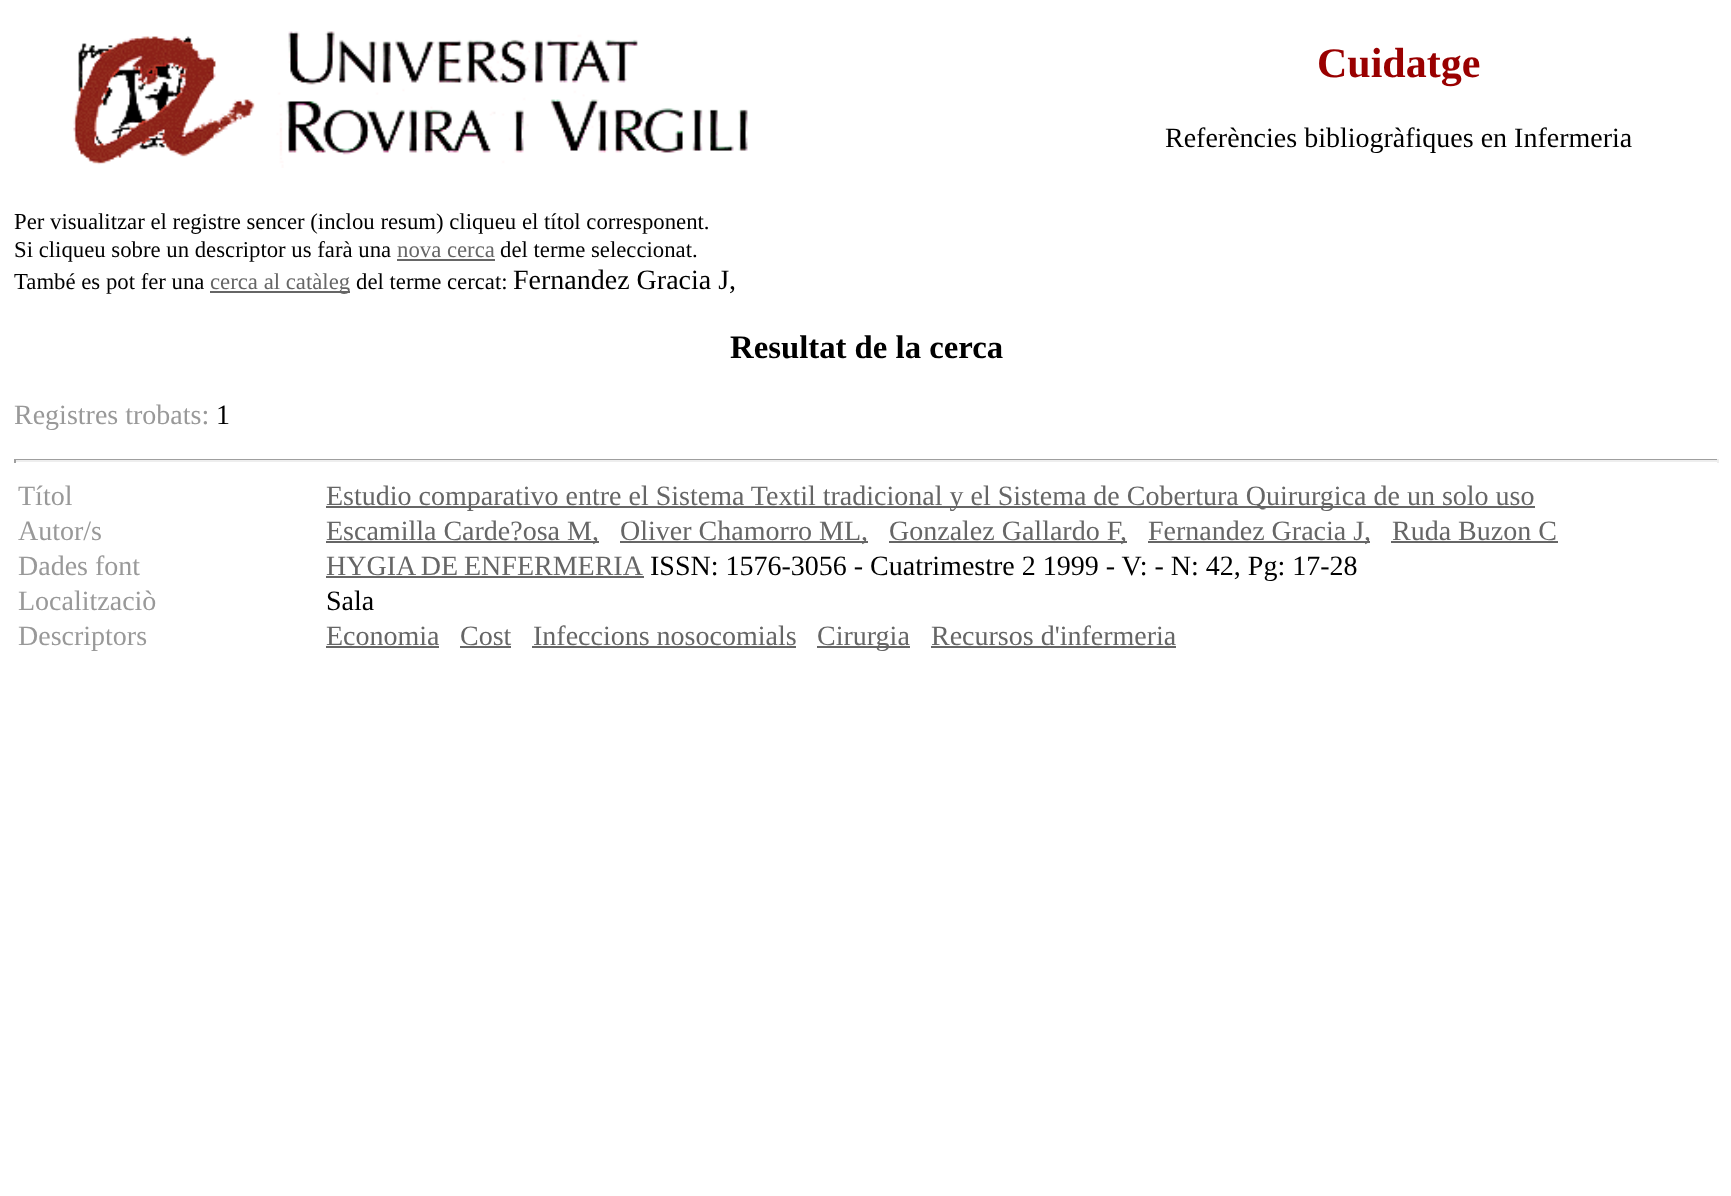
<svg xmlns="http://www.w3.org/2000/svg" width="1731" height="1196">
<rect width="100%" height="100%" fill="#fff"/>
<image x="73" y="31" width="675" height="137" href="media/1.png"/>
<text x="1317" y="77" style="font-family:Liberation Serif;font-size:42px;font-weight:bold;fill:#900">Cuidatge</text>
<text x="1165" y="147" style="font-family:Liberation Serif;font-size:28px;fill:#000">Referències bibliogràfiques en Infermeria</text>
<text x="14" y="229" style="font-family:Liberation Serif;font-size:22.75px;fill:#000">Per visualitzar el registre sencer (inclou resum) cliqueu el títol corresponent.</text>
<text x="14" y="257" style="font-family:Liberation Serif;font-size:22.75px;fill:#000">Si cliqueu sobre un descriptor us farà una</text>
<text x="397" y="257" style="font-family:Liberation Serif;font-size:22.75px;fill:#666">nova cerca</text>
<rect x="397" y="259" width="98" height="2" fill="#666"/>
<text x="500" y="257" style="font-family:Liberation Serif;font-size:22.75px;fill:#000">del terme seleccionat.</text>
<text x="14" y="289" style="font-family:Liberation Serif;font-size:22.75px;fill:#000">També es pot fer una</text>
<rect x="210" y="291" width="140" height="2" fill="#666"/>
<text x="210" y="289" style="font-family:Liberation Serif;font-size:22.75px;fill:#666">cerca al catàleg</text>
<text x="356" y="289" style="font-family:Liberation Serif;font-size:22.75px;fill:#000">del terme cercat:</text>
<text x="513" y="289" style="font-family:Liberation Serif;font-size:28px;fill:#000">Fernandez Gracia J,</text>
<text x="730" y="358" style="font-family:Liberation Serif;font-size:32.75px;font-weight:bold;fill:#000">Resultat de la cerca</text>
<text x="14" y="424" style="font-family:Liberation Serif;font-size:28px;fill:#999">Registres trobats:</text>
<text x="216" y="424" style="font-family:Liberation Serif;font-size:28px;fill:#000">1</text>
<rect x="14" y="459" width="1705" height="1" fill="#9f9f9f"/>
<rect x="1717" y="459" width="2" height="4" fill="#eee"/>
<rect x="14" y="460" width="1705" height="2" fill="#eee"/>
<rect x="14" y="459" width="2" height="4" fill="#9f9f9f"/>
<text x="18" y="505" style="font-family:Liberation Serif;font-size:28px;fill:#999">Títol</text>
<rect x="326" y="506" width="1209" height="2" fill="#666"/>
<text x="326" y="505" style="font-family:Liberation Serif;font-size:28px;fill:#666">Estudio comparativo entre el Sistema Textil tradicional y el Sistema de Cobertura Quirurgica de un solo uso</text>
<text x="18" y="540" style="font-family:Liberation Serif;font-size:28px;fill:#999">Autor/s</text>
<rect x="326" y="541" width="273" height="2" fill="#666"/>
<text x="326" y="540" style="font-family:Liberation Serif;font-size:28px;fill:#666">Escamilla Carde?osa M,</text>
<rect x="620" y="541" width="248" height="2" fill="#666"/>
<text x="620" y="540" style="font-family:Liberation Serif;font-size:28px;fill:#666">Oliver Chamorro ML,</text>
<rect x="889" y="541" width="238" height="2" fill="#666"/>
<text x="889" y="540" style="font-family:Liberation Serif;font-size:28px;fill:#666">Gonzalez Gallardo F,</text>
<rect x="1148" y="541" width="222" height="2" fill="#666"/>
<text x="1148" y="540" style="font-family:Liberation Serif;font-size:28px;fill:#666">Fernandez Gracia J,</text>
<text x="1392" y="540" style="font-family:Liberation Serif;font-size:28px;fill:#666">Ruda Buzon C</text>
<rect x="1391" y="541" width="167" height="2" fill="#666"/>
<text x="18" y="575" style="font-family:Liberation Serif;font-size:28px;fill:#999">Dades font</text>
<text x="326" y="575" word-spacing="-1" style="font-family:Liberation Serif;font-size:28px;fill:#666">HYGIA DE ENFERMERIA</text>
<rect x="326" y="576" width="318" height="2" fill="#666"/>
<text x="650" y="575" style="font-family:Liberation Serif;font-size:28px;fill:#000">ISSN: 1576-3056 - Cuatrimestre 2 1999 - V: - N: 42, Pg: 17-28</text>
<text x="18" y="610" style="font-family:Liberation Serif;font-size:28px;fill:#999">Localitzaciò</text>
<text x="326" y="610" style="font-family:Liberation Serif;font-size:28px;fill:#000">Sala</text>
<text x="18" y="645" style="font-family:Liberation Serif;font-size:28px;fill:#999">Descriptors</text>
<text x="326" y="645" style="font-family:Liberation Serif;font-size:28px;fill:#666">Economia</text>
<rect x="326" y="646" width="113" height="2" fill="#666"/>
<text x="460" y="645" style="font-family:Liberation Serif;font-size:28px;fill:#666">Cost</text>
<rect x="460" y="646" width="51" height="2" fill="#666"/>
<text x="533" y="645" style="font-family:Liberation Serif;font-size:28px;fill:#666">Infeccions nosocomials</text>
<rect x="532" y="646" width="264" height="2" fill="#666"/>
<rect x="817" y="646" width="93" height="2" fill="#666"/>
<text x="817" y="645" style="font-family:Liberation Serif;font-size:28px;fill:#666">Cirurgia</text>
<text x="931" y="645" style="font-family:Liberation Serif;font-size:28px;fill:#666">Recursos d'infermeria</text>
<rect x="931" y="646" width="245" height="2" fill="#666"/>
</svg>
